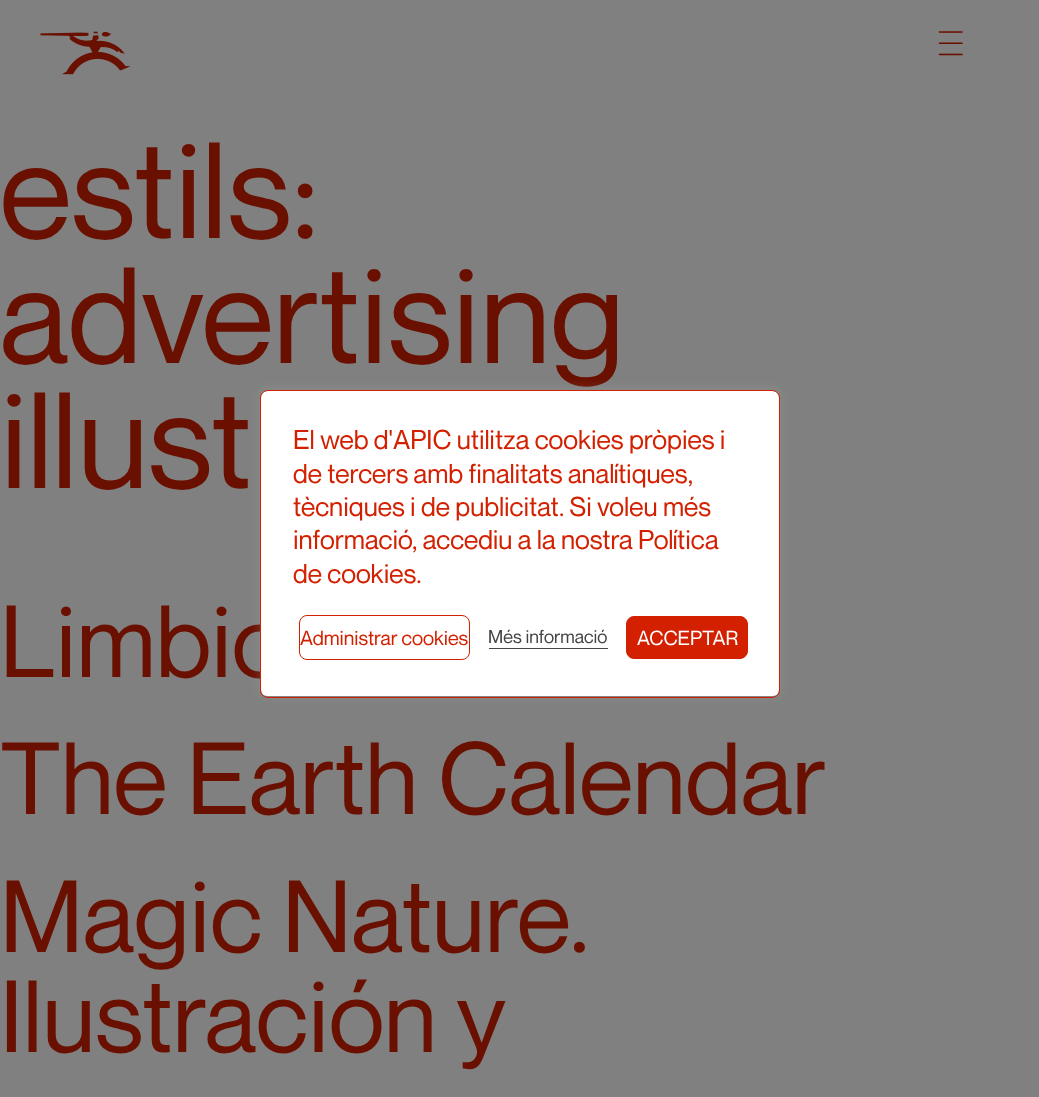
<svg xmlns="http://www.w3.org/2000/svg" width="1039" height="1097">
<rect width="100%" height="100%" fill="#808080"/>
<image x="40" y="31" width="91" height="44" href="media/1.png"/>
<image x="938" y="31" width="25" height="25" href="media/2.png"/>
<text x="0" y="238" style="font-family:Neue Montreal;font-size:133.5px;fill:#6a1000">estils:</text>
<text x="0" y="363" style="font-family:Neue Montreal;font-size:133.5px;fill:#6a1000">advertising</text>
<text x="0" y="488" style="font-family:Neue Montreal;font-size:133.5px;fill:#6a1000">illust</text>
<text x="0" y="677" style="font-family:Neue Montreal;font-size:100px;fill:#6a1000">Limbic</text>
<text x="0" y="814" style="font-family:Neue Montreal;font-size:100px;fill:#6a1000">The Earth Calendar</text>
<text x="0" y="952" style="font-family:Neue Montreal;font-size:100px;fill:#6a1000">Magic Nature.</text>
<text x="0" y="1052" style="font-family:Neue Montreal;font-size:100px;fill:#6a1000">Ilustración y</text>
<rect x="260" y="389" width="520" height="307" rx="8" fill="#acabab4d" filter="blur(6px)"/>
<rect x="261" y="391" width="518" height="305" rx="6" fill="#fff"/>
<rect x="260.5" y="390.5" width="519" height="307" rx="7.5" fill="none" stroke="#d32000"/>
<text x="293" y="449" style="font-family:Neue Montreal;font-size:26.7px;fill:#d32000">El web d'APIC utilitza cookies pròpies i</text>
<text x="293" y="483" style="font-family:Neue Montreal;font-size:26.7px;fill:#d32000">de tercers amb finalitats analítiques,</text>
<text x="293" y="516" style="font-family:Neue Montreal;font-size:26.7px;fill:#d32000">tècniques i de publicitat. Si voleu més</text>
<text x="293" y="549" style="font-family:Neue Montreal;font-size:26.7px;fill:#d32000">informació, accediu a la nostra Política</text>
<text x="293" y="583" style="font-family:Neue Montreal;font-size:26.7px;fill:#d32000">de cookies.</text>
<rect x="299.5" y="615.5" width="170" height="44" rx="7.5" fill="none" stroke="#d32000"/>
<text x="300" y="645" style="font-family:Neue Montreal;font-size:20px;fill:#d32000">Administrar cookies</text>
<text x="488" y="643" style="font-family:Neue Montreal;font-size:18.25px;fill:#444">Més informació</text>
<rect x="489" y="648" width="119" height="1" fill="#444"/>
<rect x="626.5" y="616.5" width="121" height="42" rx="7.5" fill="#d32000" stroke="#d32000"/>
<text x="637" y="645" style="font-family:Neue Montreal;font-size:20px;fill:#fff">ACCEPTAR</text>
</svg>
